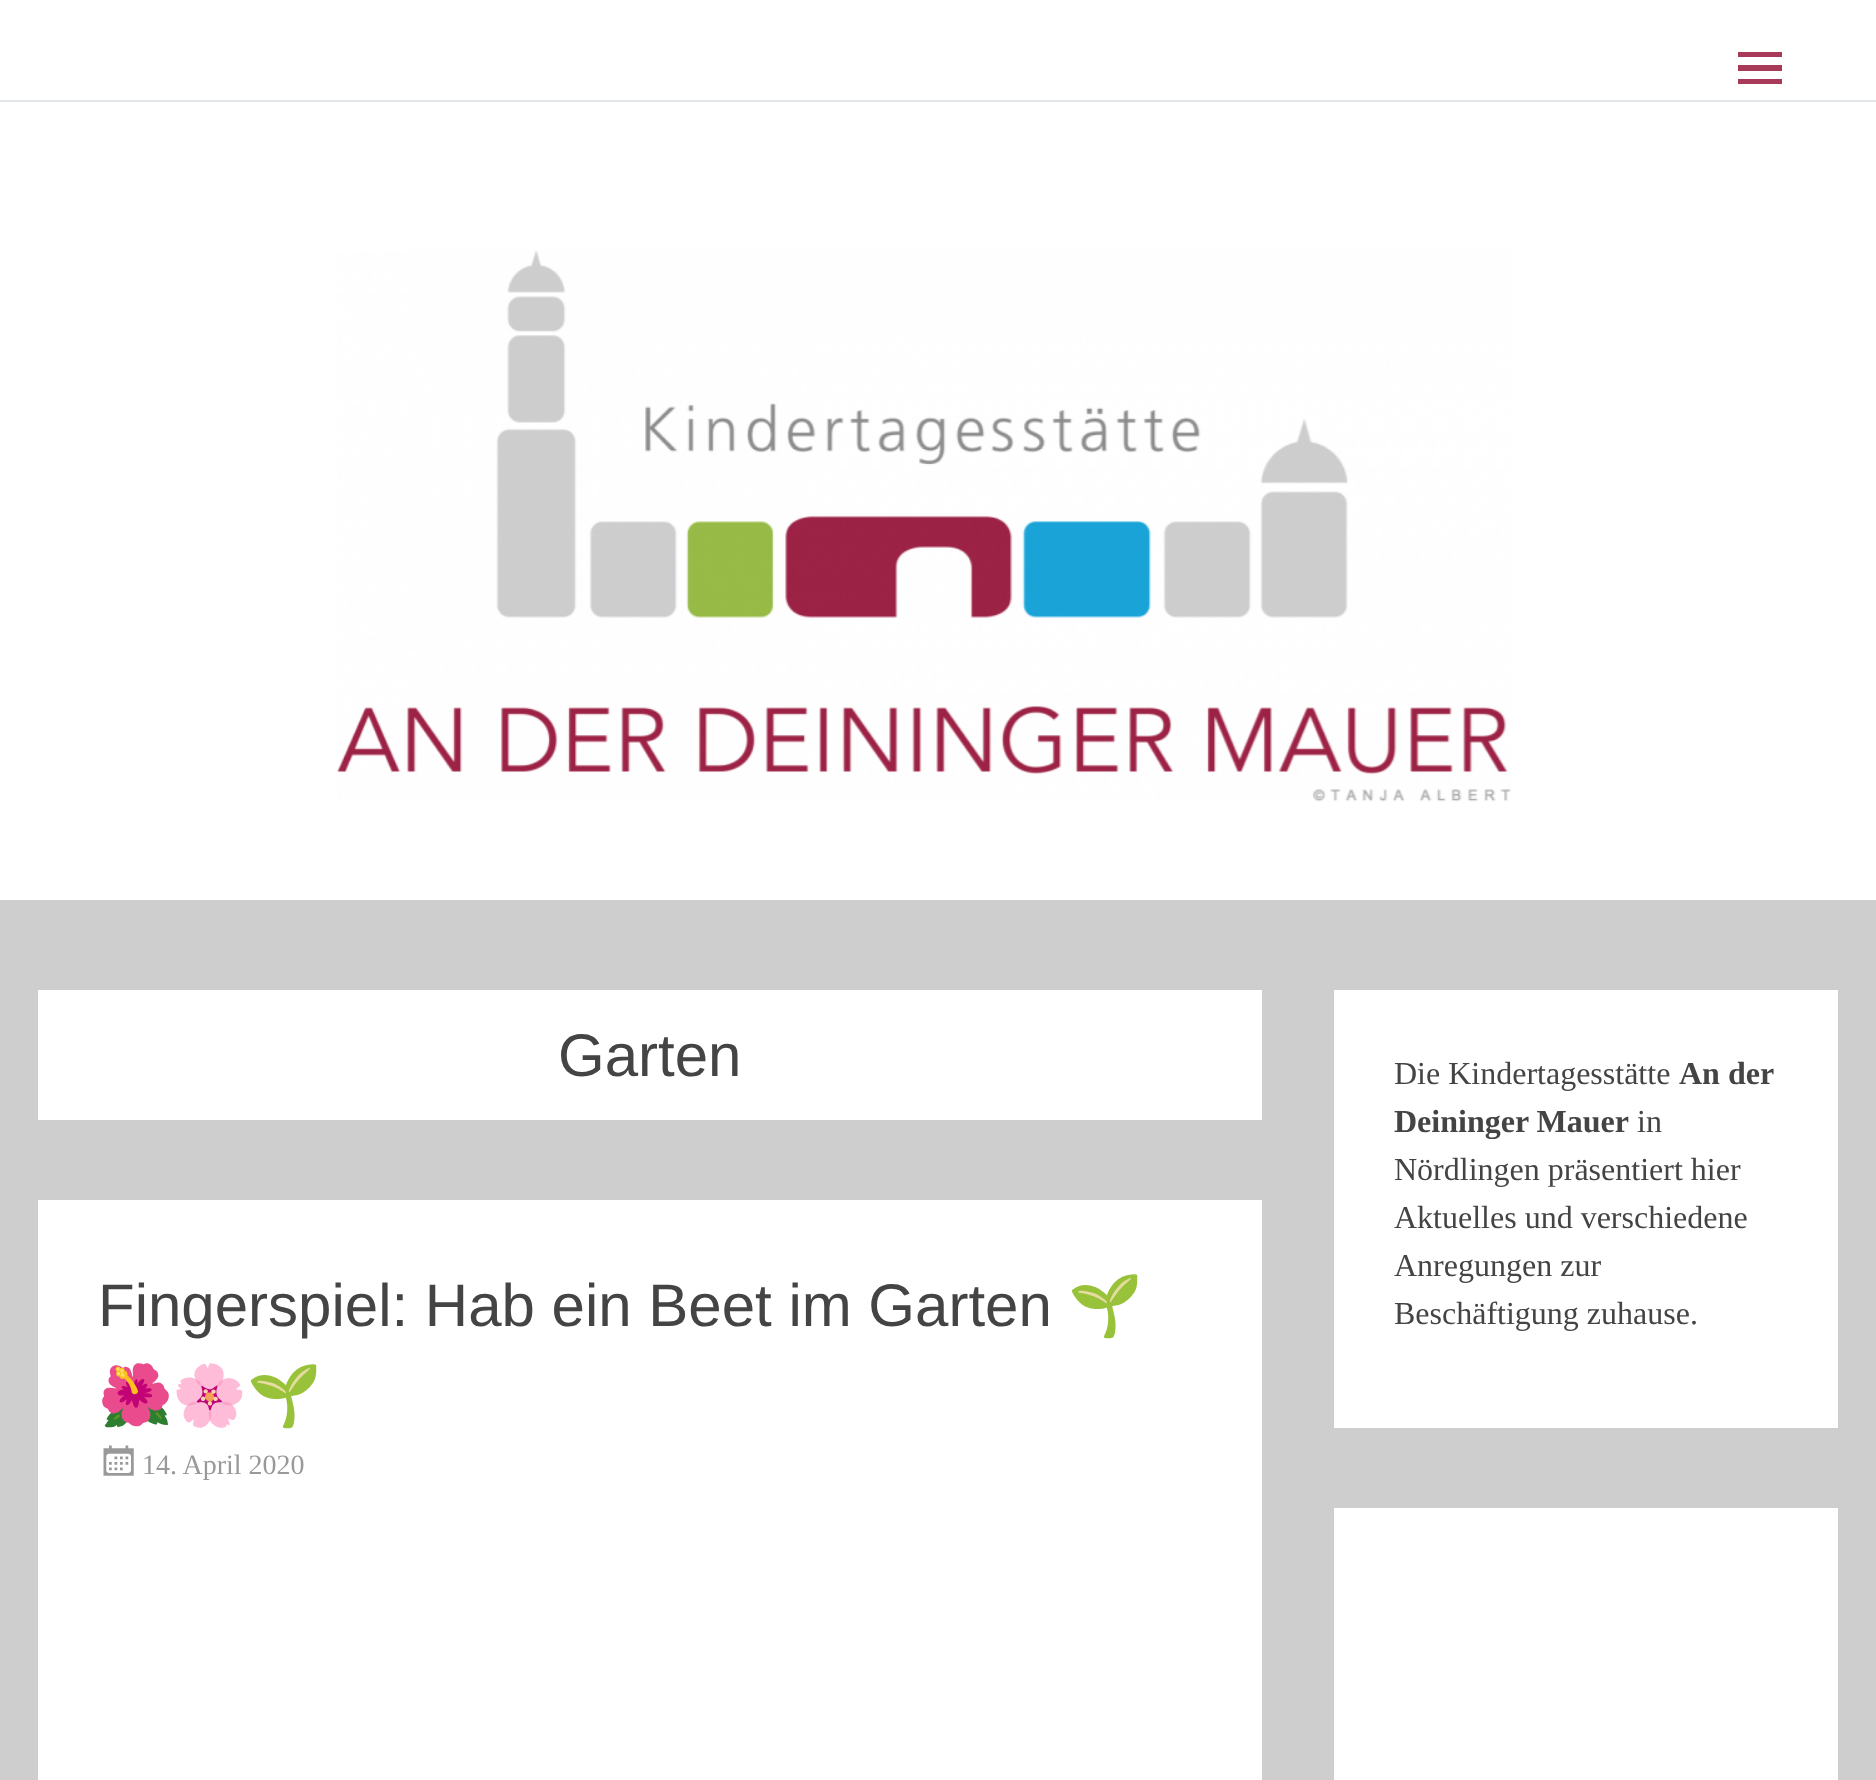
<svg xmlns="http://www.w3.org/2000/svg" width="1876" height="1780">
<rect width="100%" height="100%" fill="#fff"/>
<image x="337" y="250" width="1174" height="552" href="media/1.png"/>
<rect y="100" width="1876" height="2" fill="#e4e7e9"/>
<path d="M1738 84v-5h44v5zm0-32h44v5h-44zm0 19v-6h44v6z" fill="#a73959"/>
<rect y="900" width="1876" height="880" fill="#cdcecd"/>
<rect x="38" y="990" width="1224" height="130" fill="#fff"/>
<text x="558" y="1076" style="font-family:Liberation Sans;font-size:60px;fill:#444">Garten</text>
<rect x="38" y="1200" width="1224" height="580" fill="#fff"/>
<text x="98" y="1326" style="font-family:Liberation Sans;font-size:60px;fill:#444">Fingerspiel: Hab ein Beet im Garten</text>
<text x="1068" y="1326" style="font-family:Noto Color Emoji;font-size:60px;fill:#444">🌱</text>
<text x="98" y="1416" style="font-family:Noto Color Emoji;font-size:60px;fill:#444">🌺🌸🌱</text>
<image x="103" y="1445" width="31" height="31" href="media/2.png"/>
<text x="142" y="1474" style="font-family:Liberation Serif;font-size:28px;fill:#999">14. April 2020</text>
<rect x="1334" y="990" width="504" height="438" fill="#fff"/>
<text x="1394" y="1084" style="font-family:Liberation Serif;font-size:32px;fill:#444">Die Kindertagesstätte</text>
<text x="1679" y="1084" style="font-family:Liberation Serif;font-size:32px;font-weight:bold;fill:#444">An der</text>
<text x="1394" y="1132" style="font-family:Liberation Serif;font-size:32px;font-weight:bold;fill:#444">Deininger Mauer</text>
<text x="1637" y="1132" style="font-family:Liberation Serif;font-size:32px;fill:#444">in</text>
<text x="1394" y="1180" style="font-family:Liberation Serif;font-size:32px;fill:#444">Nördlingen präsentiert hier</text>
<text x="1394" y="1228" style="font-family:Liberation Serif;font-size:32px;fill:#444">Aktuelles und verschiedene</text>
<text x="1394" y="1276" style="font-family:Liberation Serif;font-size:32px;fill:#444">Anregungen zur</text>
<text x="1394" y="1324" style="font-family:Liberation Serif;font-size:32px;fill:#444">Beschäftigung zuhause.</text>
<rect x="1334" y="1508" width="504" height="272" fill="#fff"/>
</svg>
